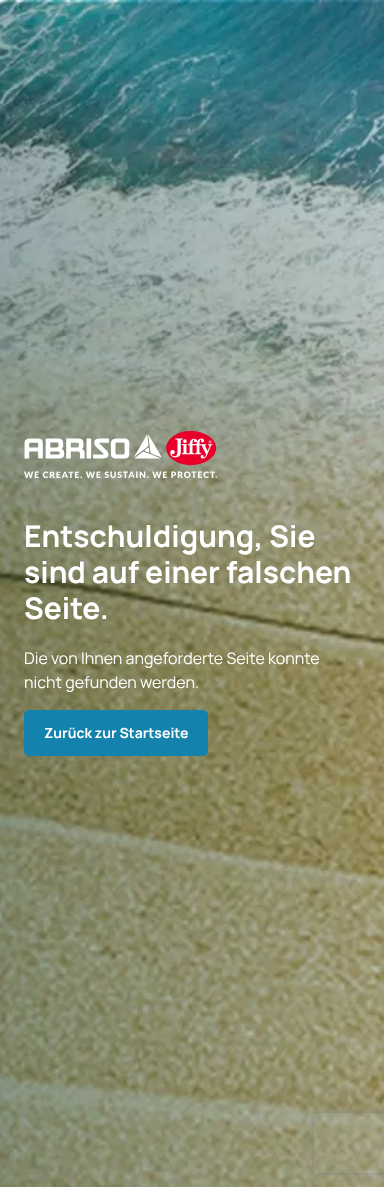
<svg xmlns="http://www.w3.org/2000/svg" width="384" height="1187">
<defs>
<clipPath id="clip1"><path d="M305 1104h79v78h-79zm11 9h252c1 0 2 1 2 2v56c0 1-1 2-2 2h-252c-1 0-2-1-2-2v-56c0-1 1-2 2-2z" clip-rule="evenodd"/></clipPath>
</defs>
<rect width="100%" height="100%" fill="#fff"/>
<image x="0" y="0" width="384" height="1187" href="media/1.png"/>
<image x="24" y="431" width="193" height="47" href="media/2.png"/>
<text x="24" y="547" style="font-family:Manrope;font-size:30px;font-weight:bold;fill:#fff">Entschuldigung, Sie</text>
<text x="24" y="583" style="font-family:Manrope;font-size:30px;font-weight:bold;fill:#fff">sind auf einer falschen</text>
<text x="24" y="619" style="font-family:Manrope;font-size:30px;font-weight:bold;fill:#fff">Seite.</text>
<text x="24" y="664" style="font-family:Manrope;font-size:16px;fill:#fff">Die von Ihnen angeforderte Seite konnte</text>
<text x="24" y="688" style="font-family:Manrope;font-size:16px;fill:#fff">nicht gefunden werden.</text>
<rect x="24" y="710" width="184" height="46" rx="5" fill="#1383ad"/>
<text x="44" y="738" style="font-family:Manrope;font-size:14px;font-weight:bold;fill:#fff">Zurück zur Startseite</text>
<g clip-path="url(#clip1)">
<rect x="314" y="1113" width="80" height="60" rx="2" fill="#808080" filter="blur(2.5px)"/>
</g>
</svg>
